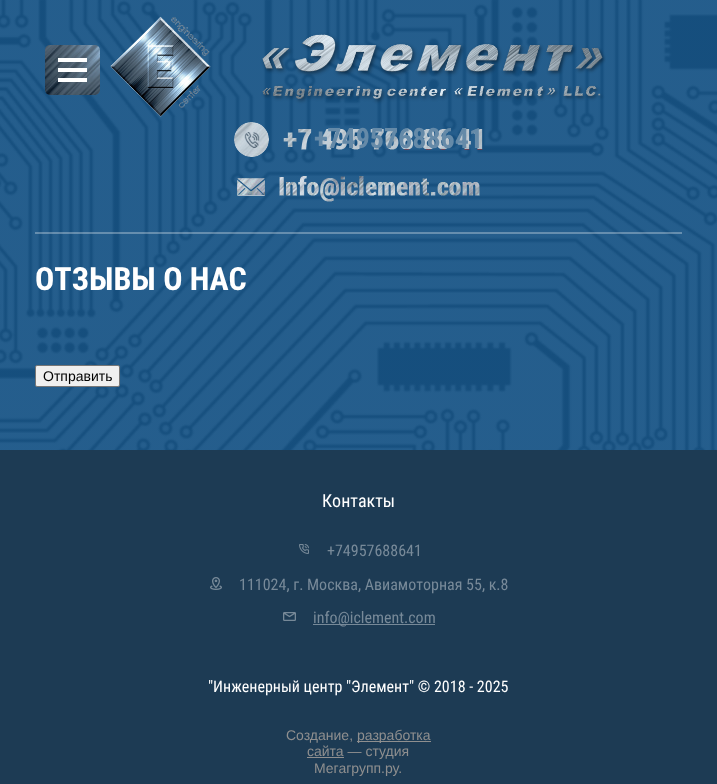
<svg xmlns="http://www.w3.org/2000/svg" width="717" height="784">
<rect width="100%" height="100%" fill="#fff"/>
<image x="0" y="0" width="717" height="450" href="media/1.png"/>
<image x="45" y="45" width="55" height="50" href="media/2.png"/>
<rect x="58" y="58" width="29" height="4" fill="#fff"/>
<rect x="58" y="68" width="29" height="4" fill="#fff"/>
<rect x="58" y="78" width="29" height="4" fill="#fff"/>
<image x="110" y="16" width="496" height="101" href="media/3.png"/>
<image x="234" y="122" width="35" height="35" href="media/4.png"/>
<image x="283" y="129" width="200" height="21" href="media/5.png"/>
<text x="314" y="148" style="font-family:Roboto Condensed;font-size:28px;font-weight:bold;fill:#658aa8">+74957688641</text>
<image x="237" y="176" width="243" height="26" href="media/6.png"/>
<rect x="35" y="232" width="647" height="2" fill="#ffffff4d"/>
<text x="35" y="290" style="font-family:Roboto Condensed;font-size:32px;font-weight:bold;fill:#fff">ОТЗЫВЫ О НАС</text>
<rect x="35.5" y="365.5" width="84" height="21" rx="1.5" fill="#efefef" stroke="#767676"/>
<text x="43" y="381" style="font-family:Liberation Sans;font-size:14px;fill:#000">Отправить</text>
<rect y="450" width="717" height="334" fill="#1d3b54"/>
<text x="322" y="507" style="font-family:Roboto Condensed;font-size:18px;fill:#fff">Контакты</text>
<image x="299" y="544" width="10" height="10" href="media/7.png"/>
<text x="327" y="556" style="font-family:Roboto Condensed;font-size:16px;fill:#788a99">+74957688641</text>
<image x="210" y="577" width="12" height="13" href="media/8.png"/>
<text x="239" y="590" style="font-family:Roboto Condensed;font-size:16px;fill:#788a99">111024, г. Москва, Авиамоторная 55, к.8</text>
<image x="283" y="612" width="13" height="9" href="media/9.png"/>
<rect x="313" y="624" width="122" height="1" fill="#778998"/>
<text x="313" y="623" style="font-family:Roboto Condensed;font-size:16px;fill:#788a99">info@iclement.com</text>
<text x="208" y="692" style="font-family:Roboto Condensed;font-size:16px;fill:#fff">"Инженерный центр "Элемент" © 2018 - 2025</text>
<text x="286" y="740" style="font-family:Liberation Sans;font-size:14px;fill:#8f8f8f">Создание,</text>
<rect x="357" y="741" width="74" height="1" fill="#8f8f8f"/>
<text x="357" y="740" style="font-family:Liberation Sans;font-size:14px;fill:#8f8f8f">разработка</text>
<rect x="307" y="757" width="37" height="1" fill="#8f8f8f"/>
<text x="307" y="756" style="font-family:Liberation Sans;font-size:14px;fill:#8f8f8f">сайта — студия</text>
<text x="314" y="773" style="font-family:Liberation Sans;font-size:14px;fill:#8f8f8f">Мегагрупп.ру.</text>
</svg>
